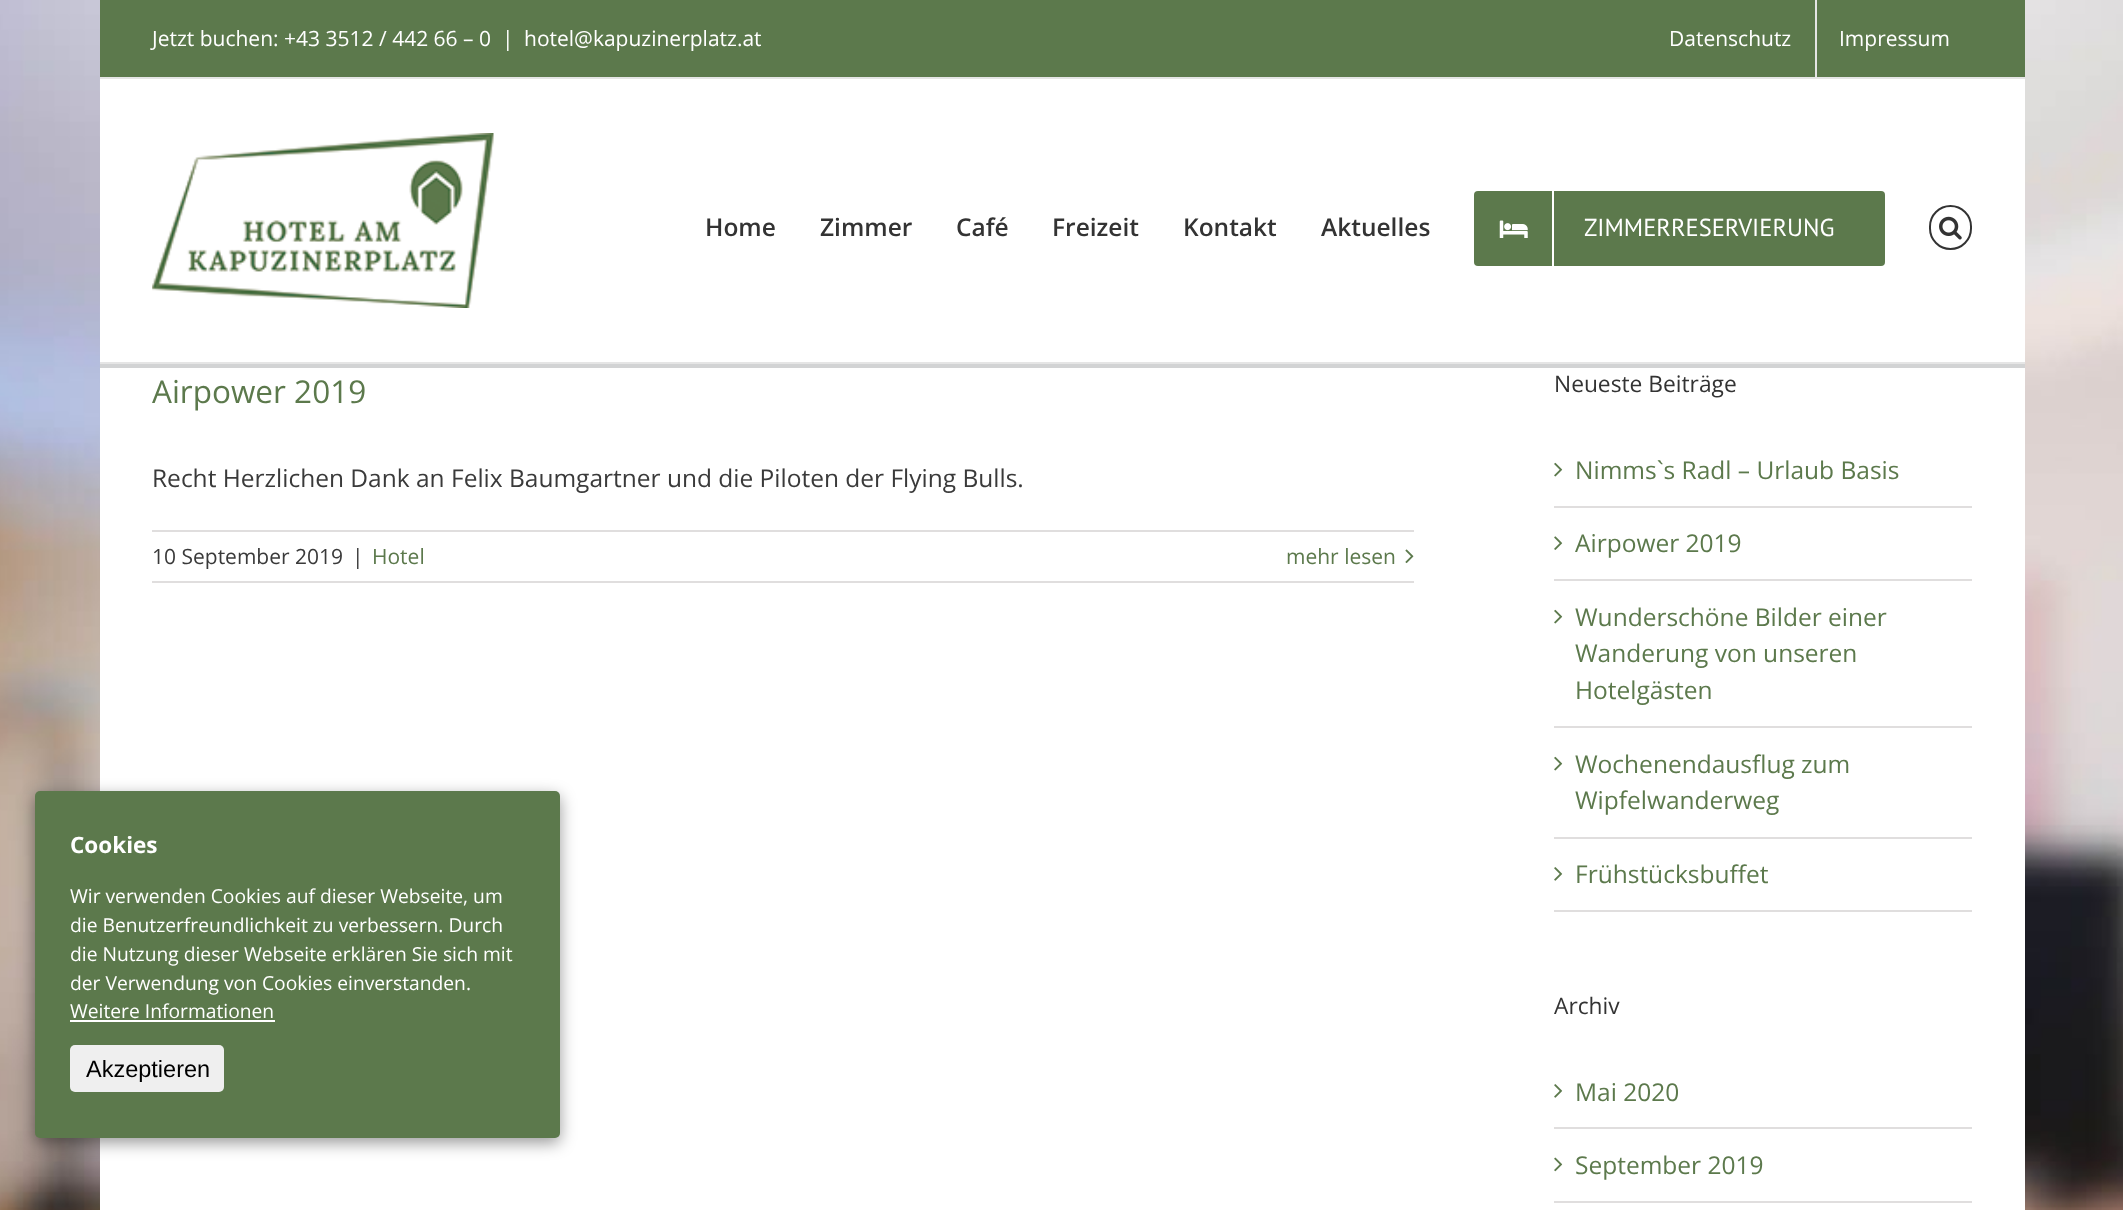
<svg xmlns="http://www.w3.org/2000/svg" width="2123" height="1210">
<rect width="100%" height="100%" fill="#fff"/>
<image x="0" y="0" width="2123" height="1210" href="media/1.png"/>
<rect x="100" width="1925" height="77" fill="#5c794c"/>
<rect x="100" y="77" width="1925" height="2" fill="#e5e5e5"/>
<text x="152" y="46" style="font-family:Open Sans;font-size:21px;fill:#fff">Jetzt buchen: +43 3512 / 442 66 – 0</text>
<text x="502" y="46" style="font-family:Open Sans;font-size:21px;fill:#fff">|</text>
<text x="524" y="46" style="font-family:Open Sans;font-size:21px;fill:#fff">hotel@kapuzinerplatz.at</text>
<text x="1669" y="46" style="font-family:Open Sans;font-size:21px;fill:#fff">Datenschutz</text>
<rect x="1815" width="2" height="77" fill="#e5e5e5"/>
<text x="1839" y="46" style="font-family:Open Sans;font-size:21px;fill:#fff">Impressum</text>
<rect x="100" y="79" width="1925" height="283" fill="#fff"/>
<rect x="100" y="362" width="1925" height="2" fill="#e5e5e5"/>
<image x="152" y="133" width="342" height="175" href="media/2.png"/>
<text x="705" y="236" style="font-family:Open Sans;font-size:24.5px;font-weight:600;fill:#333">Home</text>
<text x="820" y="236" style="font-family:Open Sans;font-size:24.5px;font-weight:600;fill:#333">Zimmer</text>
<text x="956" y="236" style="font-family:Open Sans;font-size:24.5px;font-weight:600;fill:#333">Café</text>
<text x="1052" y="236" style="font-family:Open Sans;font-size:24.5px;font-weight:600;fill:#333">Freizeit</text>
<text x="1183" y="236" style="font-family:Open Sans;font-size:24.5px;font-weight:600;fill:#333">Kontakt</text>
<text x="1321" y="236" style="font-family:Open Sans;font-size:24.5px;font-weight:600;fill:#333">Aktuelles</text>
<rect x="1474" y="191" width="411" height="75" rx="4" fill="#5c794c"/>
<rect x="1552" y="191" width="2" height="75" fill="#fff"/>
<image x="1499" y="220" width="29" height="18" href="media/3.png"/>
<text x="1584" y="236" style="font-family:PT Sans;font-size:24.5px;fill:#fff">ZIMMERRESERVIERUNG</text>
<rect x="1930" y="206" width="41" height="43" rx="20.5" fill="none" stroke="#333" stroke-width="2"/>
<image x="1939" y="216" width="23" height="24" href="media/4.png"/>
<rect x="100" y="364" width="1925" height="4" fill="#d2d3d4"/>
<rect x="100" y="368" width="1925" height="842" fill="#fff"/>
<text x="152" y="403" style="font-family:Open Sans;font-size:31.5px;fill:#5c794c">Airpower 2019</text>
<text x="152" y="487" style="font-family:Open Sans;font-size:24.5px;fill:#3a3a3a">Recht Herzlichen Dank an Felix Baumgartner und die Piloten der Flying Bulls.</text>
<rect x="152" y="530" width="1262" height="2" fill="#e0dede"/>
<rect x="152" y="581" width="1262" height="2" fill="#e0dede"/>
<text x="152" y="564" style="font-family:Open Sans;font-size:21px;fill:#3a3a3a">10 September 2019</text>
<text x="352" y="564" style="font-family:Open Sans;font-size:21px;fill:#3a3a3a">|</text>
<text x="372" y="564" style="font-family:Open Sans;font-size:21px;fill:#5c794c">Hotel</text>
<text x="1286" y="564" style="font-family:Open Sans;font-size:21px;fill:#5c794c">mehr lesen</text>
<image x="1405" y="549" width="9" height="15" href="media/5.png"/>
<text x="1554" y="392" style="font-family:Open Sans;font-size:22.75px;fill:#333">Neueste Beiträge</text>
<rect x="1554" y="506" width="418" height="2" fill="#e0dede"/>
<image x="1554" y="462" width="9" height="15" href="media/6.png"/>
<text x="1575" y="479" style="font-family:Open Sans;font-size:24.5px;fill:#5c794c">Nimms`s Radl – Urlaub Basis</text>
<rect x="1554" y="579" width="418" height="2" fill="#e0dede"/>
<image x="1554" y="536" width="9" height="14" href="media/7.png"/>
<text x="1575" y="552" style="font-family:Open Sans;font-size:24.5px;fill:#5c794c">Airpower 2019</text>
<rect x="1554" y="726" width="418" height="2" fill="#e0dede"/>
<image x="1554" y="609" width="9" height="15" href="media/6.png"/>
<text x="1575" y="626" style="font-family:Open Sans;font-size:24.5px;fill:#5c794c">Wunderschöne Bilder einer</text>
<text x="1575" y="662" style="font-family:Open Sans;font-size:24.5px;fill:#5c794c">Wanderung von unseren</text>
<text x="1575" y="699" style="font-family:Open Sans;font-size:24.5px;fill:#5c794c">Hotelgästen</text>
<rect x="1554" y="837" width="418" height="2" fill="#e0dede"/>
<image x="1554" y="756" width="9" height="15" href="media/6.png"/>
<text x="1575" y="773" style="font-family:Open Sans;font-size:24.5px;fill:#5c794c">Wochenendausflug zum</text>
<text x="1575" y="809" style="font-family:Open Sans;font-size:24.5px;fill:#5c794c">Wipfelwanderweg</text>
<rect x="1554" y="910" width="418" height="2" fill="#e0dede"/>
<image x="1554" y="867" width="9" height="14" href="media/8.png"/>
<text x="1575" y="883" style="font-family:Open Sans;font-size:24.5px;fill:#5c794c">Frühstücksbuffet</text>
<text x="1554" y="1014" style="font-family:Open Sans;font-size:22.75px;fill:#333">Archiv</text>
<rect x="1554" y="1127" width="418" height="2" fill="#e0dede"/>
<image x="1554" y="1084" width="9" height="14" href="media/8.png"/>
<text x="1575" y="1101" style="font-family:Open Sans;font-size:24.5px;fill:#5c794c">Mai 2020</text>
<rect x="1554" y="1201" width="418" height="2" fill="#e0dede"/>
<image x="1554" y="1157" width="9" height="15" href="media/9.png"/>
<text x="1575" y="1174" style="font-family:Open Sans;font-size:24.5px;fill:#5c794c">September 2019</text>
<rect x="35" y="796" width="525" height="347" rx="5" fill="#00000066" filter="blur(8px)"/>
<rect x="35" y="791" width="525" height="347" rx="5" fill="#5c794c"/>
<text x="70" y="853" style="font-family:Open Sans;font-size:22.5px;font-weight:bold;fill:#fff">Cookies</text>
<text x="70" y="903" style="font-family:Open Sans;font-size:19.25px;fill:#fff">Wir verwenden Cookies auf dieser Webseite, um</text>
<text x="70" y="932" style="font-family:Open Sans;font-size:19.25px;fill:#fff">die Benutzerfreundlichkeit zu verbessern. Durch</text>
<text x="70" y="961" style="font-family:Open Sans;font-size:19.25px;fill:#fff">die Nutzung dieser Webseite erklären Sie sich mit</text>
<text x="70" y="990" style="font-family:Open Sans;font-size:19.25px;fill:#fff">der Verwendung von Cookies einverstanden.</text>
<text x="70" y="1018" style="font-family:Open Sans;font-size:19.25px;fill:#fff">Weitere Informationen</text>
<rect x="70" y="1020" width="205" height="2" fill="#fff"/>
<rect x="70" y="1045" width="154" height="47" rx="5" fill="#efefef"/>
<text x="86" y="1077" style="font-family:Liberation Sans;font-size:23.5px;fill:#000">Akzeptieren</text>
</svg>
